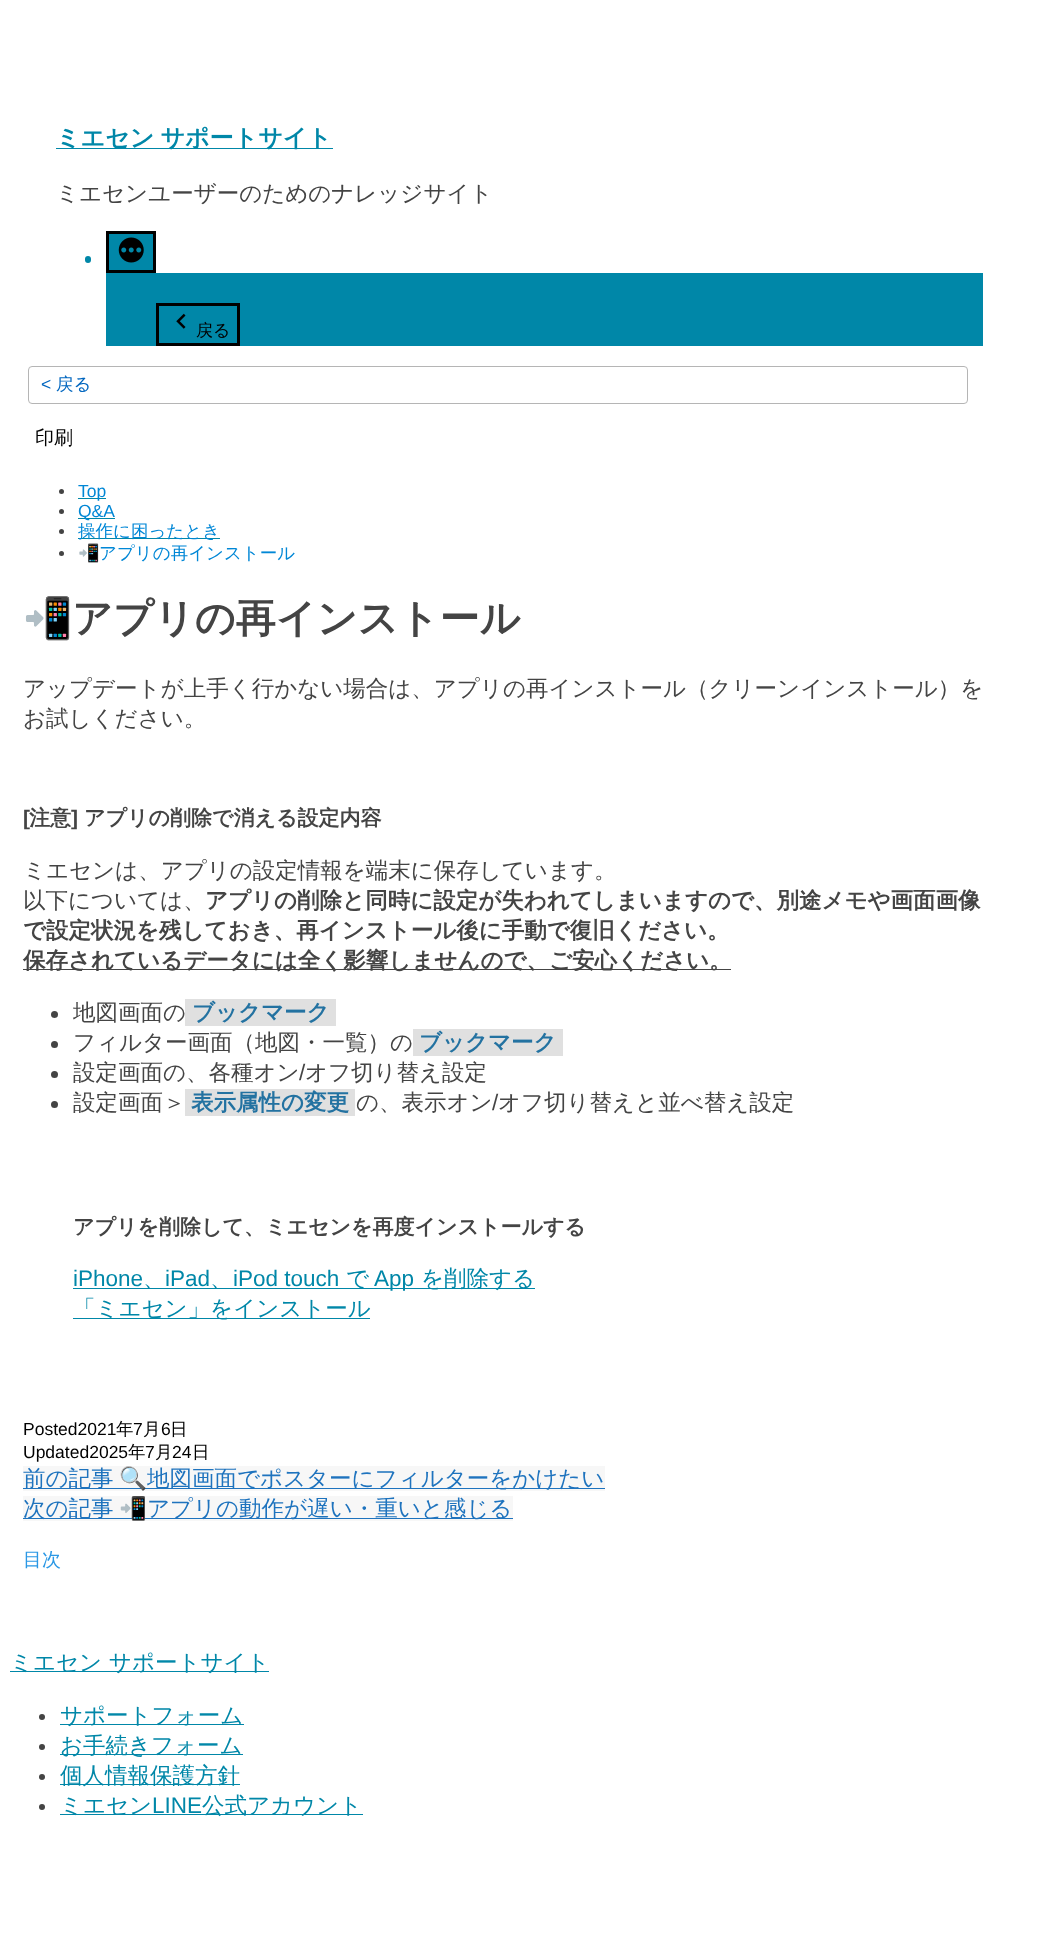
<svg xmlns="http://www.w3.org/2000/svg" width="1038" height="1937">
<rect width="100%" height="100%" fill="#fff"/>
<rect x="56" y="148" width="277" height="1" fill="#0087a8"/>
<text x="56" y="146" word-spacing="-1" style="font-family:WenQuanYi Zen Hei;font-size:24px;font-weight:bold;fill:#0087a8">ミエセン サポートサイト</text>
<text x="56" y="201" style="font-family:WenQuanYi Zen Hei;font-size:22.5px;font-weight:500;fill:#444">ミエセンユーザーのためのナレッジサイト</text>
<rect x="85" y="256" width="6" height="7" rx="3" fill="#0087a8"/>
<rect x="107.5" y="232.5" width="47" height="39" fill="#0087a8" stroke="#000" stroke-width="3"/>
<image x="118" y="237" width="26" height="26" href="media/1.png"/>
<rect x="106" y="273" width="877" height="73" fill="#0087a8"/>
<rect x="157.5" y="304.5" width="81" height="40" fill="none" stroke="#000" stroke-width="3"/>
<image x="176" y="313" width="10" height="16" href="media/2.png"/>
<text x="196" y="336" style="font-family:WenQuanYi Zen Hei;font-size:17px;font-weight:500;fill:#000">戻る</text>
<rect x="28.5" y="366.5" width="939" height="37" rx="3.5" fill="none" stroke="#b5b5b5"/>
<text x="41" y="390" style="font-family:Liberation Sans;font-size:17.5px;fill:#0066bf">&lt;</text>
<text x="56" y="390" style="font-family:WenQuanYi Zen Hei;font-size:17.5px;font-weight:500;fill:#0066bf">戻る</text>
<text x="35" y="444" style="font-family:WenQuanYi Zen Hei;font-size:19px;font-weight:500;fill:#000">印刷</text>
<circle cx="61.5" cy="491.5" r="2.5" fill="#444"/>
<rect x="78" y="498" width="28" height="1" fill="#0087a8"/>
<text x="78" y="497" style="font-family:Liberation Sans;font-size:17.5px;fill:#0087d6">Top</text>
<circle cx="61.5" cy="511.5" r="2.5" fill="#444"/>
<rect x="78" y="518" width="37" height="1" fill="#0087a8"/>
<text x="78" y="517" style="font-family:Liberation Sans;font-size:17.5px;fill:#0087d6">Q&amp;A</text>
<circle cx="61.5" cy="531.5" r="2.5" fill="#444"/>
<rect x="78" y="538" width="142" height="1" fill="#0087a8"/>
<text x="78" y="537" style="font-family:WenQuanYi Zen Hei;font-size:17.5px;font-weight:500;fill:#0087d6">操作に困ったとき</text>
<circle cx="61.5" cy="553.5" r="2.5" fill="#444"/>
<text x="78" y="559" style="font-family:Noto Color Emoji;font-size:17.5px;fill:#0087d6">📲</text>
<text x="99" y="559" style="font-family:WenQuanYi Zen Hei;font-size:17.5px;font-weight:500;fill:#0087d6">アプリの再インストール</text>
<text x="23" y="632" style="font-family:Noto Color Emoji;font-size:40px;font-weight:bold;fill:#444">📲</text>
<text x="72" y="632" style="font-family:WenQuanYi Zen Hei;font-size:40px;font-weight:bold;fill:#444">アプリの再インストール</text>
<text x="23" y="696" style="font-family:WenQuanYi Zen Hei;font-size:22.5px;font-weight:500;fill:#444">アップデートが上手く行かない場合は、アプリの再インストール（クリーンインストール）を</text>
<text x="23" y="726" style="font-family:WenQuanYi Zen Hei;font-size:22.5px;font-weight:500;fill:#444">お試しください。</text>
<text x="23" y="825" style="font-family:Liberation Sans;font-size:21px;font-weight:bold;fill:#444">[</text>
<text x="29" y="825" style="font-family:WenQuanYi Zen Hei;font-size:21px;font-weight:bold;fill:#444">注意</text>
<text x="71" y="825" style="font-family:Liberation Sans;font-size:21px;font-weight:bold;fill:#444">]</text>
<text x="84" y="825" style="font-family:WenQuanYi Zen Hei;font-size:21px;font-weight:bold;fill:#444">アプリの削除で消える設定内容</text>
<text x="23" y="878" style="font-family:WenQuanYi Zen Hei;font-size:22.5px;font-weight:500;fill:#444">ミエセンは、アプリの設定情報を端末に保存しています。</text>
<text x="23" y="908" style="font-family:WenQuanYi Zen Hei;font-size:22.5px;font-weight:500;fill:#444">以下については、</text>
<text x="205" y="908" style="font-family:WenQuanYi Zen Hei;font-size:22.5px;font-weight:bold;fill:#444">アプリの削除と同時に設定が失われてしまいますので、別途メモや画面画像</text>
<text x="23" y="938" style="font-family:WenQuanYi Zen Hei;font-size:22.5px;font-weight:bold;fill:#444">で設定状況を残しておき、再インストール後に手動で復旧ください。</text>
<rect x="23" y="969" width="708" height="1" fill="#444"/>
<text x="23" y="968" style="font-family:WenQuanYi Zen Hei;font-size:22.5px;font-weight:bold;fill:#444">保存されているデータには全く影響しませんので、ご安心ください。</text>
<circle cx="54.5" cy="1014.5" r="3.5" fill="#444"/>
<text x="73" y="1020" style="font-family:WenQuanYi Zen Hei;font-size:22.5px;font-weight:500;fill:#444">地図画面の</text>
<rect x="185" y="999" width="151" height="27" fill="#e0e0e0"/>
<text x="192" y="1020" style="font-family:WenQuanYi Zen Hei;font-size:22.5px;font-weight:bold;fill:#2372a1">ブックマーク</text>
<circle cx="54.5" cy="1044.5" r="3.5" fill="#444"/>
<text x="73" y="1050" style="font-family:WenQuanYi Zen Hei;font-size:22.5px;font-weight:500;fill:#444">フィルター画面（地図・一覧）の</text>
<rect x="413" y="1029" width="150" height="27" fill="#e0e0e0"/>
<text x="419" y="1050" style="font-family:WenQuanYi Zen Hei;font-size:22.5px;font-weight:bold;fill:#2372a1">ブックマーク</text>
<circle cx="54.5" cy="1074.5" r="3.5" fill="#444"/>
<text x="73" y="1080" style="font-family:WenQuanYi Zen Hei;font-size:22.5px;font-weight:500;fill:#444">設定画面の、各種オン</text>
<text x="299" y="1080" style="font-family:Liberation Sans;font-size:22.5px;fill:#444">/</text>
<text x="305" y="1080" style="font-family:WenQuanYi Zen Hei;font-size:22.5px;font-weight:500;fill:#444">オフ切り替え設定</text>
<circle cx="54.5" cy="1104.5" r="3.5" fill="#444"/>
<text x="73" y="1110" style="font-family:WenQuanYi Zen Hei;font-size:22.5px;font-weight:500;fill:#444">設定画面＞</text>
<rect x="185" y="1089" width="170" height="27" fill="#e0e0e0"/>
<text x="191" y="1110" style="font-family:WenQuanYi Zen Hei;font-size:22.5px;font-weight:bold;fill:#2372a1">表示属性の変更</text>
<text x="356" y="1110" style="font-family:WenQuanYi Zen Hei;font-size:22.5px;font-weight:500;fill:#444">の、表示オン</text>
<text x="492" y="1110" style="font-family:Liberation Sans;font-size:22.5px;fill:#444">/</text>
<text x="498" y="1110" style="font-family:WenQuanYi Zen Hei;font-size:22.5px;font-weight:500;fill:#444">オフ切り替えと並べ替え設定</text>
<text x="73" y="1234" style="font-family:WenQuanYi Zen Hei;font-size:21px;font-weight:bold;fill:#444">アプリを削除して、ミエセンを再度インストールする</text>
<text x="73" y="1286" style="font-family:Liberation Sans;font-size:22.5px;fill:#0087a8">iPhone</text>
<rect x="73" y="1288" width="462" height="1" fill="#0087a8"/>
<text x="143" y="1286" style="font-family:WenQuanYi Zen Hei;font-size:22.5px;font-weight:500;fill:#0087a8">、</text>
<text x="165" y="1286" style="font-family:Liberation Sans;font-size:22.5px;fill:#0087a8">iPad</text>
<text x="210" y="1286" style="font-family:WenQuanYi Zen Hei;font-size:22.5px;font-weight:500;fill:#0087a8">、</text>
<text x="233" y="1286" style="font-family:Liberation Sans;font-size:22.5px;fill:#0087a8">iPod touch</text>
<text x="346" y="1286" style="font-family:WenQuanYi Zen Hei;font-size:22.5px;font-weight:500;fill:#0087a8">で</text>
<text x="374" y="1286" style="font-family:Liberation Sans;font-size:22.5px;fill:#0087a8">App</text>
<text x="421" y="1286" style="font-family:WenQuanYi Zen Hei;font-size:22.5px;font-weight:500;fill:#0087a8">を削除する</text>
<rect x="73" y="1318" width="297" height="1" fill="#0087a8"/>
<text x="73" y="1316" style="font-family:WenQuanYi Zen Hei;font-size:22.5px;font-weight:500;fill:#0087a8">「ミエセン」をインストール</text>
<text x="23" y="1435" style="font-family:Liberation Sans;font-size:17.5px;fill:#000">Posted2021</text>
<text x="116" y="1435" style="font-family:WenQuanYi Zen Hei;font-size:17.5px;font-weight:500;fill:#000">年</text>
<text x="133" y="1435" style="font-family:Liberation Sans;font-size:17.5px;fill:#000">7</text>
<text x="143" y="1435" style="font-family:WenQuanYi Zen Hei;font-size:17.5px;font-weight:500;fill:#000">月</text>
<text x="161" y="1435" style="font-family:Liberation Sans;font-size:17.5px;fill:#000">6</text>
<text x="170" y="1435" style="font-family:WenQuanYi Zen Hei;font-size:17.5px;font-weight:500;fill:#000">日</text>
<text x="23" y="1458" style="font-family:Liberation Sans;font-size:17.5px;fill:#000">Updated2025</text>
<text x="128" y="1458" style="font-family:WenQuanYi Zen Hei;font-size:17.5px;font-weight:500;fill:#000">年</text>
<text x="145" y="1458" style="font-family:Liberation Sans;font-size:17.5px;fill:#000">7</text>
<text x="155" y="1458" style="font-family:WenQuanYi Zen Hei;font-size:17.5px;font-weight:500;fill:#000">月</text>
<text x="172" y="1458" style="font-family:Liberation Sans;font-size:17.5px;fill:#000">24</text>
<text x="192" y="1458" style="font-family:WenQuanYi Zen Hei;font-size:17.5px;font-weight:500;fill:#000">日</text>
<rect x="23" y="1466" width="582" height="25" fill="#f7f7f7"/>
<rect x="23" y="1488" width="582" height="1" fill="#1e73be"/>
<text x="23" y="1486" style="font-family:WenQuanYi Zen Hei;font-size:22.5px;font-weight:500;fill:#1e73be">前の記事</text>
<text x="119" y="1486" style="font-family:Noto Color Emoji;font-size:22.5px;fill:#1e73be">🔍</text>
<text x="147" y="1486" style="font-family:WenQuanYi Zen Hei;font-size:22.5px;font-weight:500;fill:#1e73be">地図画面でポスターにフィルターをかけたい</text>
<rect x="23" y="1496" width="490" height="25" fill="#f7f7f7"/>
<rect x="23" y="1518" width="490" height="1" fill="#1e73be"/>
<text x="23" y="1516" style="font-family:WenQuanYi Zen Hei;font-size:22.5px;font-weight:500;fill:#1e73be">次の記事</text>
<text x="119" y="1516" style="font-family:Noto Color Emoji;font-size:22.5px;fill:#1e73be">📲</text>
<text x="147" y="1516" style="font-family:WenQuanYi Zen Hei;font-size:22.5px;font-weight:500;fill:#1e73be">アプリの動作が遅い・重いと感じる</text>
<text x="23" y="1566" style="font-family:WenQuanYi Zen Hei;font-size:19px;font-weight:500;fill:#2b98e5">目次</text>
<rect x="10" y="1671" width="259" height="1" fill="#0087a8"/>
<text x="10" y="1670" style="font-family:WenQuanYi Zen Hei;font-size:22.5px;font-weight:500;fill:#0087a8">ミエセン サポートサイト</text>
<circle cx="42" cy="1717" r="3" fill="#444"/>
<rect x="60" y="1724" width="184" height="1" fill="#0087a8"/>
<text x="60" y="1723" style="font-family:WenQuanYi Zen Hei;font-size:22.5px;font-weight:500;fill:#0087a8">サポートフォーム</text>
<circle cx="42" cy="1747" r="3" fill="#444"/>
<rect x="60" y="1754" width="183" height="1" fill="#0087a8"/>
<text x="60" y="1753" style="font-family:WenQuanYi Zen Hei;font-size:22.5px;font-weight:500;fill:#0087a8">お手続きフォーム</text>
<circle cx="42" cy="1777" r="3" fill="#444"/>
<rect x="60" y="1784" width="180" height="1" fill="#0087a8"/>
<text x="60" y="1783" style="font-family:WenQuanYi Zen Hei;font-size:22.5px;font-weight:500;fill:#0087a8">個人情報保護方針</text>
<circle cx="42" cy="1807" r="3" fill="#444"/>
<rect x="60" y="1814" width="303" height="1" fill="#0087a8"/>
<text x="60" y="1813" style="font-family:WenQuanYi Zen Hei;font-size:22.5px;font-weight:500;fill:#0087a8">ミエセン</text>
<text x="152" y="1813" style="font-family:Liberation Sans;font-size:22.5px;fill:#0087a8">LINE</text>
<text x="202" y="1813" style="font-family:WenQuanYi Zen Hei;font-size:22.5px;font-weight:500;fill:#0087a8">公式アカウント</text>
</svg>
